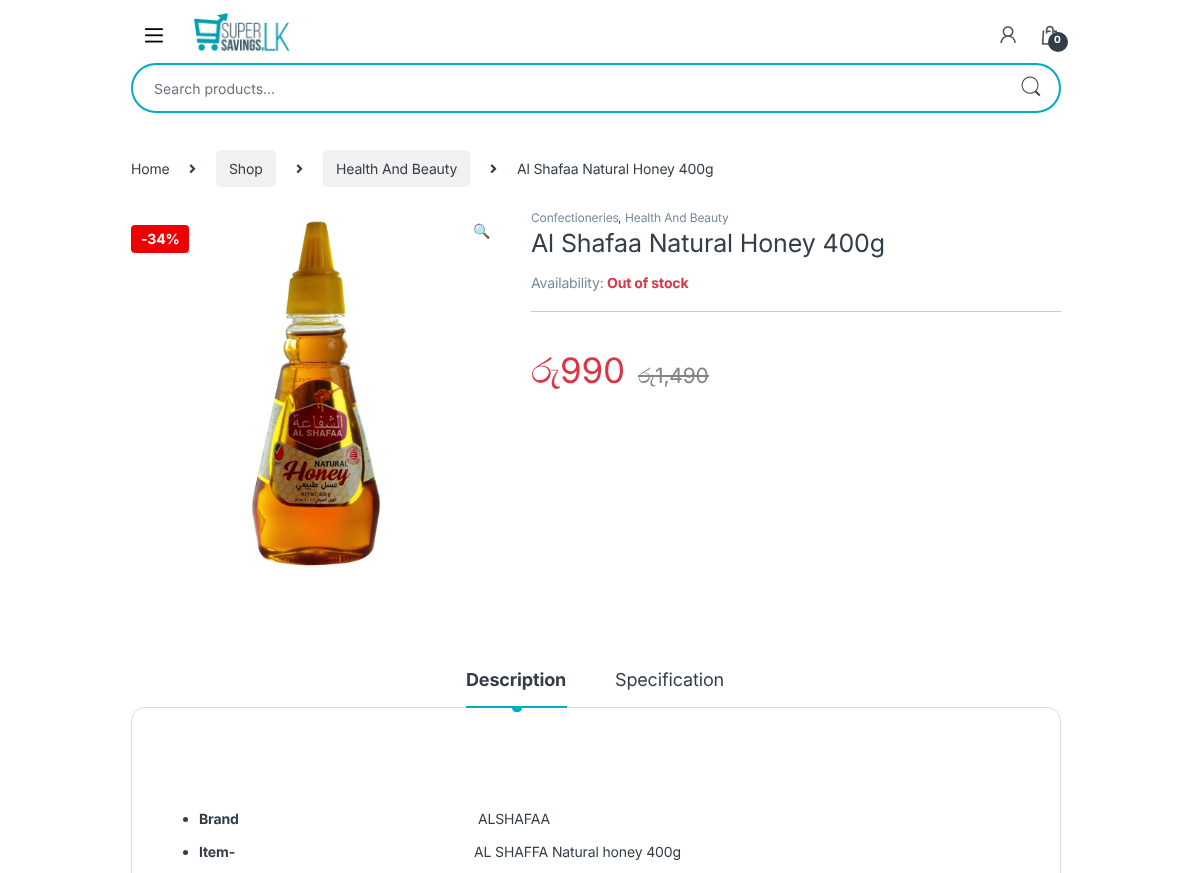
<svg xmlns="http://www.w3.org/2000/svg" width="1191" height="873">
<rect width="100%" height="100%" fill="#fff"/>
<image x="145" y="28" width="18" height="15" href="media/1.png"/>
<image x="193" y="13" width="97" height="39" href="media/2.png"/>
<image x="1000" y="26" width="16" height="18" href="media/3.png"/>
<image x="1041" y="25" width="17" height="20" href="media/4.png"/>
<circle cx="1058" cy="42" r="10" fill="#333e48"/>
<text x="1054" y="43" style="font-family:Inter;font-size:10px;font-weight:bold;letter-spacing:-0.15px;fill:#fff">0</text>
<rect x="132" y="64" width="928" height="48" rx="24" fill="none" stroke="#00abc5" stroke-width="2"/>
<text x="154" y="94" style="font-family:Inter;font-size:14px;fill:#6c757d">Search products…</text>
<image x="1021" y="76" width="20" height="21" href="media/5.png"/>
<text x="131" y="174" style="font-family:Inter;font-size:14px;letter-spacing:-0.15px;fill:#333e48">Home</text>
<image x="189" y="164" width="7" height="10" href="media/6.png"/>
<rect x="216" y="150" width="60" height="37" rx="5" fill="#f1f1f1"/>
<text x="229" y="174" style="font-family:Inter;font-size:14px;letter-spacing:-0.15px;fill:#333e48">Shop</text>
<image x="296" y="164" width="7" height="10" href="media/6.png"/>
<rect x="323" y="150" width="147" height="37" rx="5" fill="#f1f1f1"/>
<text x="336" y="174" style="font-family:Inter;font-size:14px;letter-spacing:-0.15px;fill:#333e48">Health And Beauty</text>
<image x="490" y="164" width="7" height="10" href="media/6.png"/>
<text x="517" y="174" style="font-family:Inter;font-size:14px;letter-spacing:-0.15px;fill:#333e48">Al Shafaa Natural Honey 400g</text>
<rect x="131" y="225" width="58" height="28" rx="4" fill="#e00"/>
<text x="141" y="244" style="font-family:Inter;font-size:14px;font-weight:bold;letter-spacing:-0.15px;fill:#fff">-34%</text>
<image x="251" y="221" width="130" height="345" href="media/7.png"/>
<text x="473" y="236" style="font-family:Noto Color Emoji;font-size:14px;letter-spacing:-0.15px;fill:#333e48">🔍</text>
<text x="531" y="222" style="font-family:Inter;font-size:12px;letter-spacing:-0.15px;fill:#768b9e">Confectioneries</text>
<text x="618" y="222" style="font-family:Inter;font-size:12px;letter-spacing:-0.15px;fill:#333e48">,</text>
<text x="625" y="222" style="font-family:Inter;font-size:12px;letter-spacing:-0.15px;fill:#768b9e">Health And Beauty</text>
<text x="531" y="252" style="font-family:Inter;font-size:25px;letter-spacing:-0.15px;fill:#333e48">Al Shafaa Natural Honey 400g</text>
<text x="531" y="288" style="font-family:Inter;font-size:14px;letter-spacing:-0.15px;fill:#768b9e">Availability:</text>
<text x="607" y="288" style="font-family:Inter;font-size:14px;font-weight:bold;letter-spacing:-0.15px;fill:#dc3545">Out of stock</text>
<rect x="531" y="311" width="530" height="1" fill="#cccfd1"/>
<text x="531" y="383" style="font-family:FreeSerif;font-size:35px;letter-spacing:-0.15px;fill:#dc3545">රු</text>
<text x="560" y="383" style="font-family:Inter;font-size:35px;letter-spacing:-0.15px;fill:#dc3545">990</text>
<text x="638" y="383" style="font-family:FreeSerif;font-size:21px;letter-spacing:-0.15px;fill:#848484">රු</text>
<rect x="638" y="375" width="17" height="2" fill="#848484"/>
<rect x="655" y="375" width="54" height="2" fill="#848484"/>
<text x="655" y="383" style="font-family:Inter;font-size:21px;letter-spacing:-0.15px;fill:#848484">1,490</text>
<text x="466" y="686" style="font-family:Inter;font-size:18px;font-weight:bold;letter-spacing:-0.15px;fill:#333e48">Description</text>
<rect x="131.5" y="707.5" width="929" height="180" rx="13.5" fill="none" stroke="#ddd"/>
<rect x="466" y="706" width="101" height="2" fill="#00abc5"/>
<path d="M512 708h10c0 2-2 4-4 4h-2c-2 0-4-2-4-4z" fill="#00abc5"/>
<text x="615" y="686" style="font-family:Inter;font-size:18px;letter-spacing:-0.15px;fill:#333e48">Specification</text>
<circle cx="185.5" cy="819.5" r="2.5" fill="#333e48"/>
<text x="199" y="824" style="font-family:Inter;font-size:14px;font-weight:bold;letter-spacing:-0.15px;fill:#333e48">Brand</text>
<text x="478" y="824" style="font-family:Inter;font-size:14px;letter-spacing:-0.15px;fill:#333e48">ALSHAFAA</text>
<circle cx="185.5" cy="852.5" r="2.5" fill="#333e48"/>
<text x="199" y="857" style="font-family:Inter;font-size:14px;font-weight:bold;letter-spacing:-0.15px;fill:#333e48">Item-</text>
<text x="474" y="857" style="font-family:Inter;font-size:14px;letter-spacing:-0.15px;fill:#333e48">AL SHAFFA Natural honey 400g</text>
</svg>
